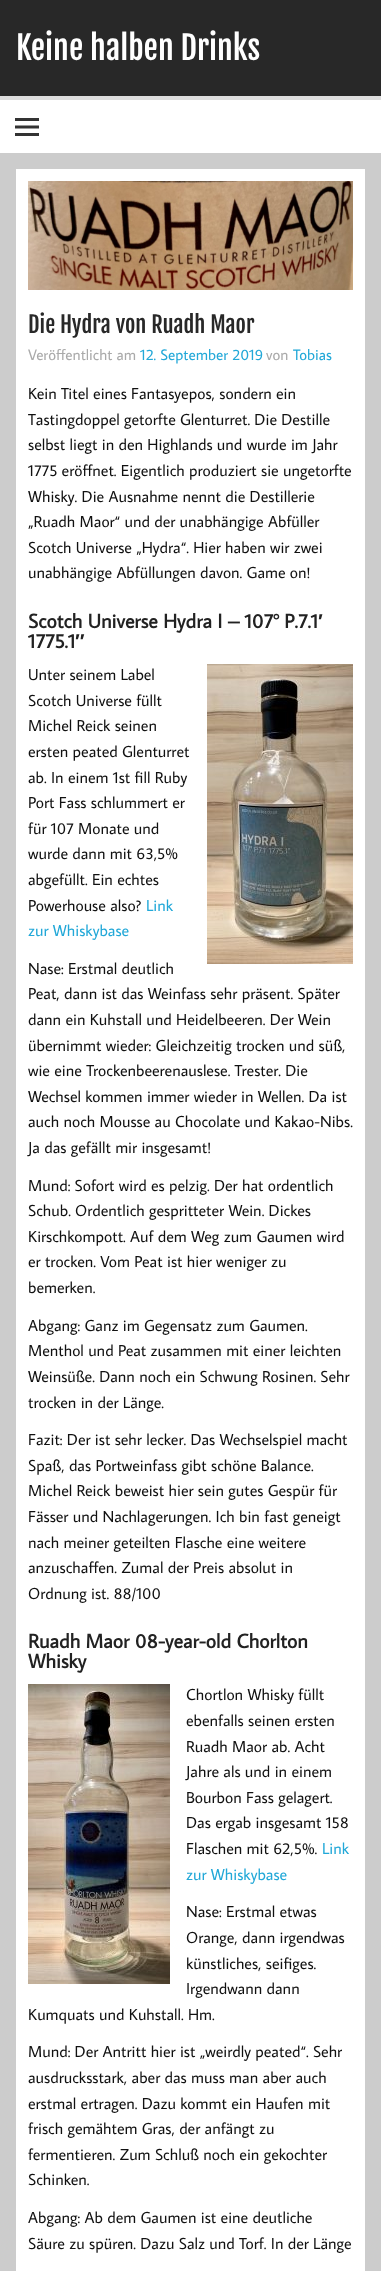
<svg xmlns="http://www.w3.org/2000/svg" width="381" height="2271">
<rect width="100%" height="100%" fill="#ccc"/>
<rect width="381" height="96" fill="#282828"/>
<text x="16" y="60" style="font-family:Fjalla One;font-size:32px;fill:#fff">Keine halben Drinks</text>
<rect y="100" width="381" height="53" fill="#fff"/>
<rect y="96" width="381" height="4" fill="#ddd"/>
<image x="15" y="118" width="24" height="18" href="media/1.png"/>
<rect x="16" y="169" width="349" height="2102" fill="#fff"/>
<image x="28" y="181" width="325" height="109" href="media/2.png"/>
<text x="28" y="333" style="font-family:Fjalla One;font-size:22.4px;fill:#282828">Die Hydra von Ruadh Maor</text>
<text x="28" y="360" style="font-family:Average Sans;font-size:15.25px;fill:#aaa">Veröffentlicht am</text>
<text x="140" y="360" style="font-family:Average Sans;font-size:15.25px;fill:#22a8d8">12. September 2019</text>
<text x="266" y="360" style="font-family:Average Sans;font-size:15.25px;fill:#aaa">von</text>
<text x="293" y="360" style="font-family:Average Sans;font-size:15.25px;fill:#22a8d8">Tobias</text>
<text x="28" y="399" style="font-family:Average Sans;font-size:16px;fill:#111">Kein Titel eines Fantasyepos, sondern ein</text>
<text x="28" y="425" style="font-family:Average Sans;font-size:16px;fill:#111">Tastingdoppel getorfte Glenturret. Die Destille</text>
<text x="28" y="450" style="font-family:Average Sans;font-size:16px;fill:#111">selbst liegt in den Highlands und wurde im Jahr</text>
<text x="28" y="476" style="font-family:Average Sans;font-size:16px;fill:#111">1775 eröffnet. Eigentlich produziert sie ungetorfte</text>
<text x="28" y="502" style="font-family:Average Sans;font-size:16px;fill:#111">Whisky. Die Ausnahme nennt die Destillerie</text>
<text x="28" y="527" style="font-family:Average Sans;font-size:16px;fill:#111">„Ruadh Maor“ und der unabhängige Abfüller</text>
<text x="28" y="553" style="font-family:Average Sans;font-size:16px;fill:#111">Scotch Universe „Hydra“. Hier haben wir zwei</text>
<text x="28" y="578" style="font-family:Average Sans;font-size:16px;fill:#111">unabhängige Abfüllungen davon. Game on!</text>
<text x="28" y="628" style="font-family:Average Sans;font-size:20px;font-weight:bold;fill:#222">Scotch Universe Hydra I – 107° P.7.1</text>
<text x="318" y="628" style="font-family:Liberation Sans;font-size:20px;font-weight:bold;fill:#222">′</text>
<text x="28" y="648" style="font-family:Average Sans;font-size:20px;font-weight:bold;fill:#222">1775.1</text>
<text x="75" y="648" style="font-family:Liberation Sans;font-size:20px;font-weight:bold;fill:#222">″</text>
<text x="28" y="680" style="font-family:Average Sans;font-size:16px;fill:#111">Unter seinem Label</text>
<text x="28" y="706" style="font-family:Average Sans;font-size:16px;fill:#111">Scotch Universe füllt</text>
<text x="28" y="731" style="font-family:Average Sans;font-size:16px;fill:#111">Michel Reick seinen</text>
<text x="28" y="757" style="font-family:Average Sans;font-size:16px;fill:#111">ersten peated Glenturret</text>
<text x="28" y="783" style="font-family:Average Sans;font-size:16px;fill:#111">ab. In einem 1st fill Ruby</text>
<text x="28" y="808" style="font-family:Average Sans;font-size:16px;fill:#111">Port Fass schlummert er</text>
<text x="28" y="834" style="font-family:Average Sans;font-size:16px;fill:#111">für 107 Monate und</text>
<text x="28" y="859" style="font-family:Average Sans;font-size:16px;fill:#111">wurde dann mit 63,5%</text>
<text x="28" y="885" style="font-family:Average Sans;font-size:16px;fill:#111">abgefüllt. Ein echtes</text>
<text x="28" y="911" style="font-family:Average Sans;font-size:16px;fill:#111">Powerhouse also?</text>
<text x="146" y="911" style="font-family:Average Sans;font-size:16px;fill:#22a8d8">Link</text>
<text x="28" y="936" style="font-family:Average Sans;font-size:16px;fill:#22a8d8">zur Whiskybase</text>
<image x="207" y="664" width="146" height="300" href="media/3.png"/>
<text x="28" y="974" style="font-family:Average Sans;font-size:16px;fill:#111">Nase: Erstmal deutlich</text>
<text x="28" y="999" style="font-family:Average Sans;font-size:16px;fill:#111">Peat, dann ist das Weinfass sehr präsent. Später</text>
<text x="28" y="1025" style="font-family:Average Sans;font-size:16px;fill:#111">dann ein Kuhstall und Heidelbeeren. Der Wein</text>
<text x="28" y="1051" style="font-family:Average Sans;font-size:16px;fill:#111">übernimmt wieder: Gleichzeitig trocken und süß,</text>
<text x="28" y="1076" style="font-family:Average Sans;font-size:16px;fill:#111">wie eine Trockenbeerenauslese. Trester. Die</text>
<text x="28" y="1102" style="font-family:Average Sans;font-size:16px;fill:#111">Wechsel kommen immer wieder in Wellen. Da ist</text>
<text x="28" y="1127" style="font-family:Average Sans;font-size:16px;fill:#111">auch noch Mousse au Chocolate und Kakao-Nibs.</text>
<text x="28" y="1153" style="font-family:Average Sans;font-size:16px;fill:#111">Ja das gefällt mir insgesamt!</text>
<text x="28" y="1191" style="font-family:Average Sans;font-size:16px;fill:#111">Mund: Sofort wird es pelzig. Der hat ordentlich</text>
<text x="28" y="1216" style="font-family:Average Sans;font-size:16px;fill:#111">Schub. Ordentlich gespritteter Wein. Dickes</text>
<text x="28" y="1242" style="font-family:Average Sans;font-size:16px;fill:#111">Kirschkompott. Auf dem Weg zum Gaumen wird</text>
<text x="28" y="1267" style="font-family:Average Sans;font-size:16px;fill:#111">er trocken. Vom Peat ist hier weniger zu</text>
<text x="28" y="1293" style="font-family:Average Sans;font-size:16px;fill:#111">bemerken.</text>
<text x="28" y="1331" style="font-family:Average Sans;font-size:16px;fill:#111">Abgang: Ganz im Gegensatz zum Gaumen.</text>
<text x="28" y="1356" style="font-family:Average Sans;font-size:16px;fill:#111">Menthol und Peat zusammen mit einer leichten</text>
<text x="28" y="1382" style="font-family:Average Sans;font-size:16px;fill:#111">Weinsüße. Dann noch ein Schwung Rosinen. Sehr</text>
<text x="28" y="1408" style="font-family:Average Sans;font-size:16px;fill:#111">trocken in der Länge.</text>
<text x="28" y="1445" style="font-family:Average Sans;font-size:16px;fill:#111">Fazit: Der ist sehr lecker. Das Wechselspiel macht</text>
<text x="28" y="1471" style="font-family:Average Sans;font-size:16px;fill:#111">Spaß, das Portweinfass gibt schöne Balance.</text>
<text x="28" y="1496" style="font-family:Average Sans;font-size:16px;fill:#111">Michel Reick beweist hier sein gutes Gespür für</text>
<text x="28" y="1522" style="font-family:Average Sans;font-size:16px;fill:#111">Fässer und Nachlagerungen. Ich bin fast geneigt</text>
<text x="28" y="1548" style="font-family:Average Sans;font-size:16px;fill:#111">nach meiner geteilten Flasche eine weitere</text>
<text x="28" y="1573" style="font-family:Average Sans;font-size:16px;fill:#111">anzuschaffen. Zumal der Preis absolut in</text>
<text x="28" y="1599" style="font-family:Average Sans;font-size:16px;fill:#111">Ordnung ist. 88/100</text>
<text x="28" y="1648" style="font-family:Average Sans;font-size:20px;font-weight:bold;fill:#222">Ruadh Maor 08-year-old Chorlton</text>
<text x="28" y="1668" style="font-family:Average Sans;font-size:20px;font-weight:bold;fill:#222">Whisky</text>
<image x="28" y="1684" width="142" height="300" href="media/4.png"/>
<text x="186" y="1700" style="font-family:Average Sans;font-size:16px;fill:#111">Chortlon Whisky füllt</text>
<text x="186" y="1726" style="font-family:Average Sans;font-size:16px;fill:#111">ebenfalls seinen ersten</text>
<text x="186" y="1752" style="font-family:Average Sans;font-size:16px;fill:#111">Ruadh Maor ab. Acht</text>
<text x="186" y="1777" style="font-family:Average Sans;font-size:16px;fill:#111">Jahre als und in einem</text>
<text x="186" y="1803" style="font-family:Average Sans;font-size:16px;fill:#111">Bourbon Fass gelagert.</text>
<text x="186" y="1828" style="font-family:Average Sans;font-size:16px;fill:#111">Das ergab insgesamt 158</text>
<text x="186" y="1854" style="font-family:Average Sans;font-size:16px;fill:#111">Flaschen mit 62,5%.</text>
<text x="322" y="1854" style="font-family:Average Sans;font-size:16px;fill:#22a8d8">Link</text>
<text x="186" y="1880" style="font-family:Average Sans;font-size:16px;fill:#22a8d8">zur Whiskybase</text>
<text x="186" y="1917" style="font-family:Average Sans;font-size:16px;fill:#111">Nase: Erstmal etwas</text>
<text x="186" y="1943" style="font-family:Average Sans;font-size:16px;fill:#111">Orange, dann irgendwas</text>
<text x="186" y="1969" style="font-family:Average Sans;font-size:16px;fill:#111">künstliches, seifiges.</text>
<text x="186" y="1994" style="font-family:Average Sans;font-size:16px;fill:#111">Irgendwann dann</text>
<text x="28" y="2020" style="font-family:Average Sans;font-size:16px;fill:#111">Kumquats und Kuhstall. Hm.</text>
<text x="28" y="2057" style="font-family:Average Sans;font-size:16px;fill:#111">Mund: Der Antritt hier ist „weirdly peated“. Sehr</text>
<text x="28" y="2083" style="font-family:Average Sans;font-size:16px;fill:#111">ausdrucksstark, aber das muss man aber auch</text>
<text x="28" y="2109" style="font-family:Average Sans;font-size:16px;fill:#111">erstmal ertragen. Dazu kommt ein Haufen mit</text>
<text x="28" y="2134" style="font-family:Average Sans;font-size:16px;fill:#111">frisch gemähtem Gras, der anfängt zu</text>
<text x="28" y="2160" style="font-family:Average Sans;font-size:16px;fill:#111">fermentieren. Zum Schluß noch ein gekochter</text>
<text x="28" y="2185" style="font-family:Average Sans;font-size:16px;fill:#111">Schinken.</text>
<text x="28" y="2223" style="font-family:Average Sans;font-size:16px;fill:#111">Abgang: Ab dem Gaumen ist eine deutliche</text>
<text x="28" y="2249" style="font-family:Average Sans;font-size:16px;fill:#111">Säure zu spüren. Dazu Salz und Torf. In der Länge</text>
</svg>
